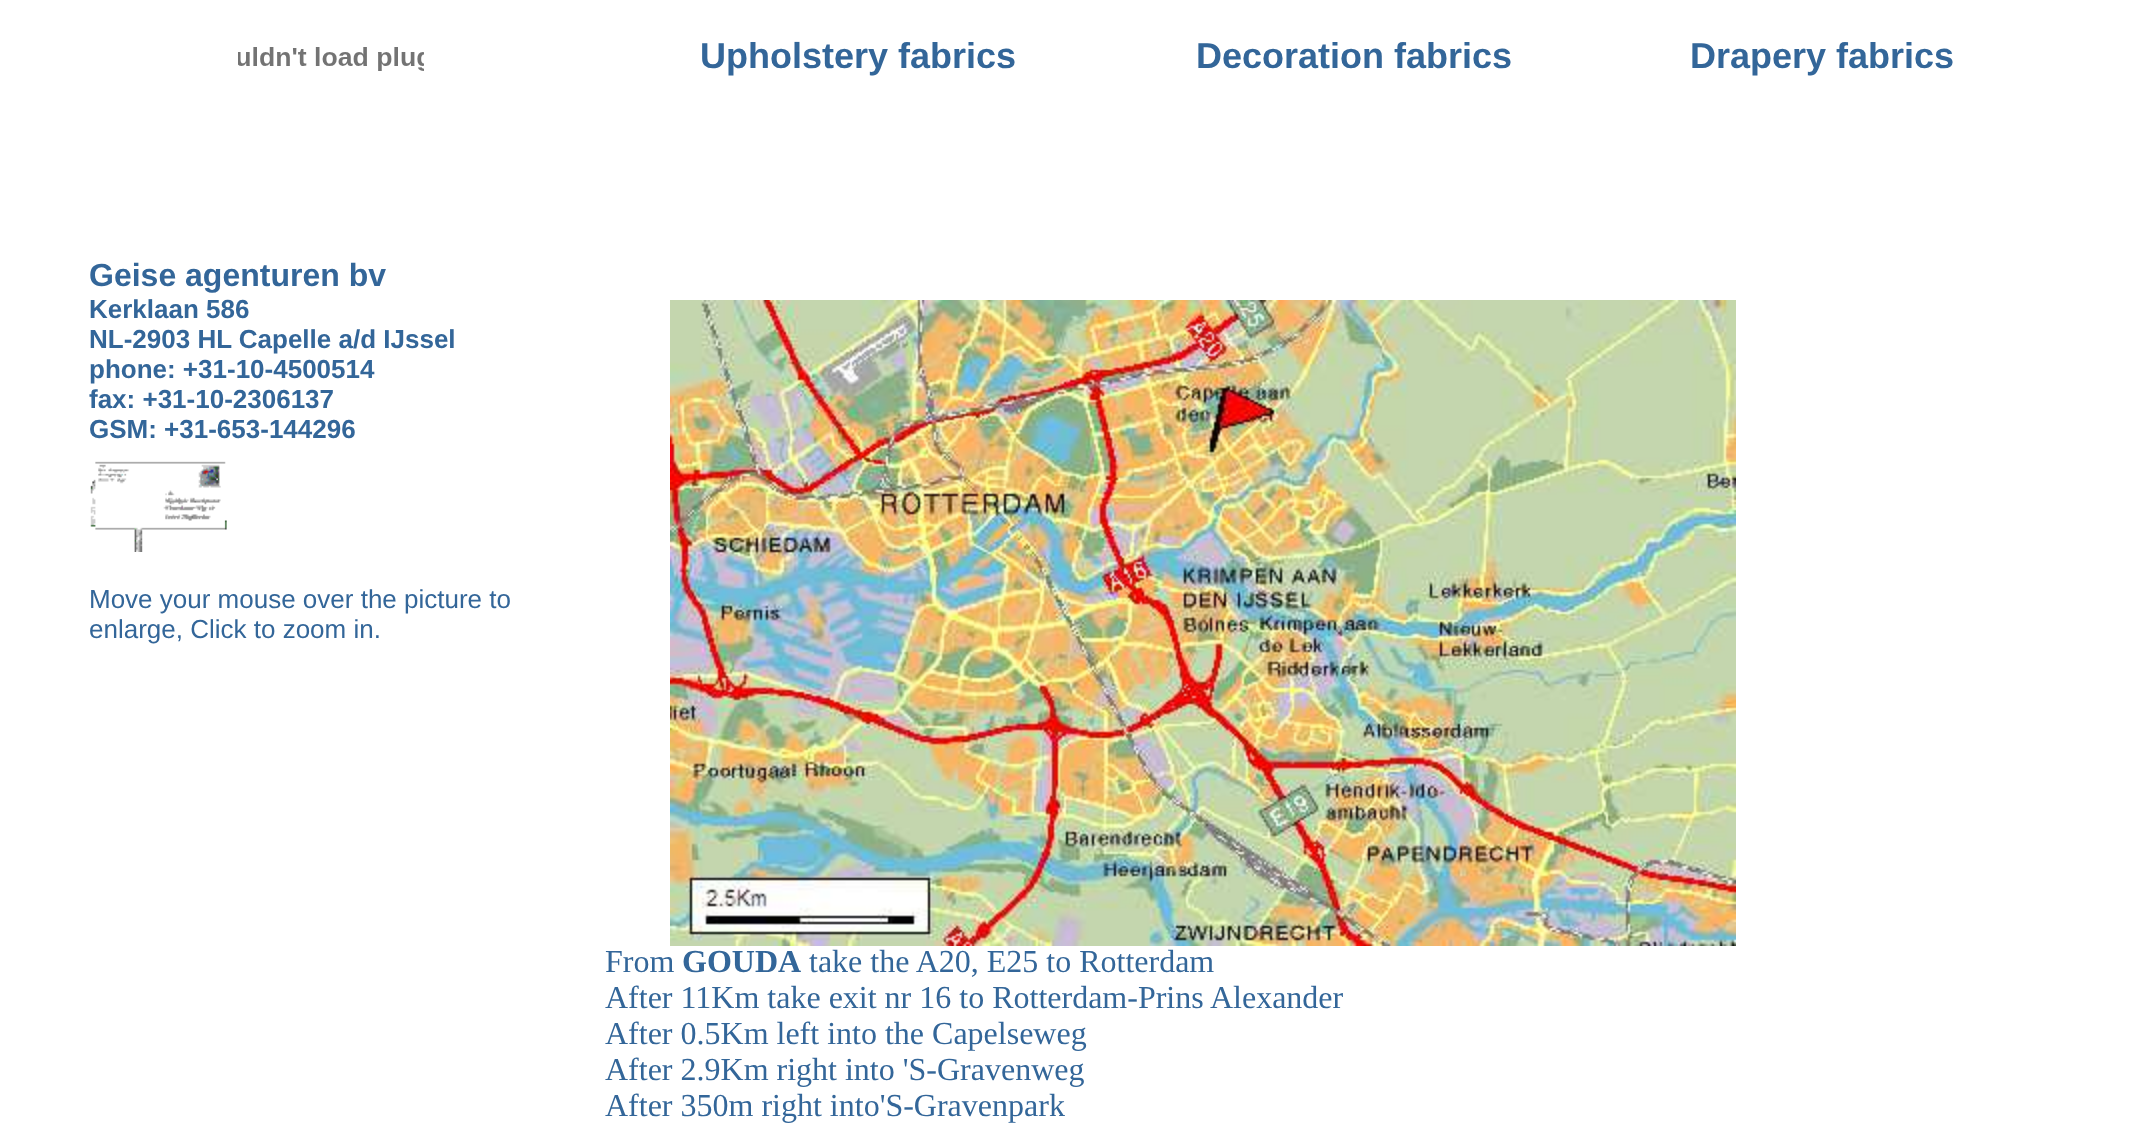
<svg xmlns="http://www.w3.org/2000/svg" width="2134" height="1124">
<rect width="100%" height="100%" fill="#fff"/>
<image x="238" y="47" width="186" height="24" href="media/1.png"/>
<text x="700" y="68" style="font-family:Liberation Sans;font-size:36px;font-weight:bold;fill:#369">Upholstery fabrics</text>
<text x="1196" y="68" style="font-family:Liberation Sans;font-size:36px;font-weight:bold;fill:#369">Decoration fabrics</text>
<text x="1690" y="68" style="font-family:Liberation Sans;font-size:36px;font-weight:bold;fill:#369">Drapery fabrics</text>
<text x="89" y="286" style="font-family:Liberation Sans;font-size:32px;font-weight:bold;fill:#369">Geise agenturen bv</text>
<text x="89" y="318" style="font-family:Liberation Sans;font-size:26px;font-weight:bold;fill:#369">Kerklaan 586</text>
<text x="89" y="348" style="font-family:Liberation Sans;font-size:26px;font-weight:bold;fill:#369">NL-2903 HL Capelle a/d IJssel</text>
<text x="89" y="378" style="font-family:Liberation Sans;font-size:26px;font-weight:bold;fill:#369">phone: +31-10-4500514</text>
<text x="89" y="408" style="font-family:Liberation Sans;font-size:26px;font-weight:bold;fill:#369">fax: +31-10-2306137</text>
<text x="89" y="438" style="font-family:Liberation Sans;font-size:26px;font-weight:bold;fill:#369">GSM: +31-653-144296</text>
<image x="90" y="461" width="137" height="91" href="media/2.png"/>
<text x="89" y="608" style="font-family:Liberation Sans;font-size:26px;fill:#369">Move your mouse over the picture to</text>
<text x="89" y="638" style="font-family:Liberation Sans;font-size:26px;fill:#369">enlarge, Click to zoom in.</text>
<text x="605" y="972" style="font-family:Liberation Serif;font-size:32px;fill:#369">From</text>
<text x="682" y="972" style="font-family:Liberation Serif;font-size:32px;font-weight:bold;fill:#369">GOUDA</text>
<text x="809" y="972" style="font-family:Liberation Serif;font-size:32px;fill:#369">take the A20, E25 to Rotterdam</text>
<text x="605" y="1008" style="font-family:Liberation Serif;font-size:32px;fill:#369">After 11Km take exit nr 16 to Rotterdam-Prins Alexander</text>
<text x="605" y="1044" style="font-family:Liberation Serif;font-size:32px;fill:#369">After 0.5Km left into the Capelseweg</text>
<text x="605" y="1080" style="font-family:Liberation Serif;font-size:32px;fill:#369">After 2.9Km right into 'S-Gravenweg</text>
<text x="605" y="1116" style="font-family:Liberation Serif;font-size:32px;fill:#369">After 350m right into'S-Gravenpark</text>
<image x="670" y="300" width="1066" height="646" href="media/3.png"/>
</svg>
